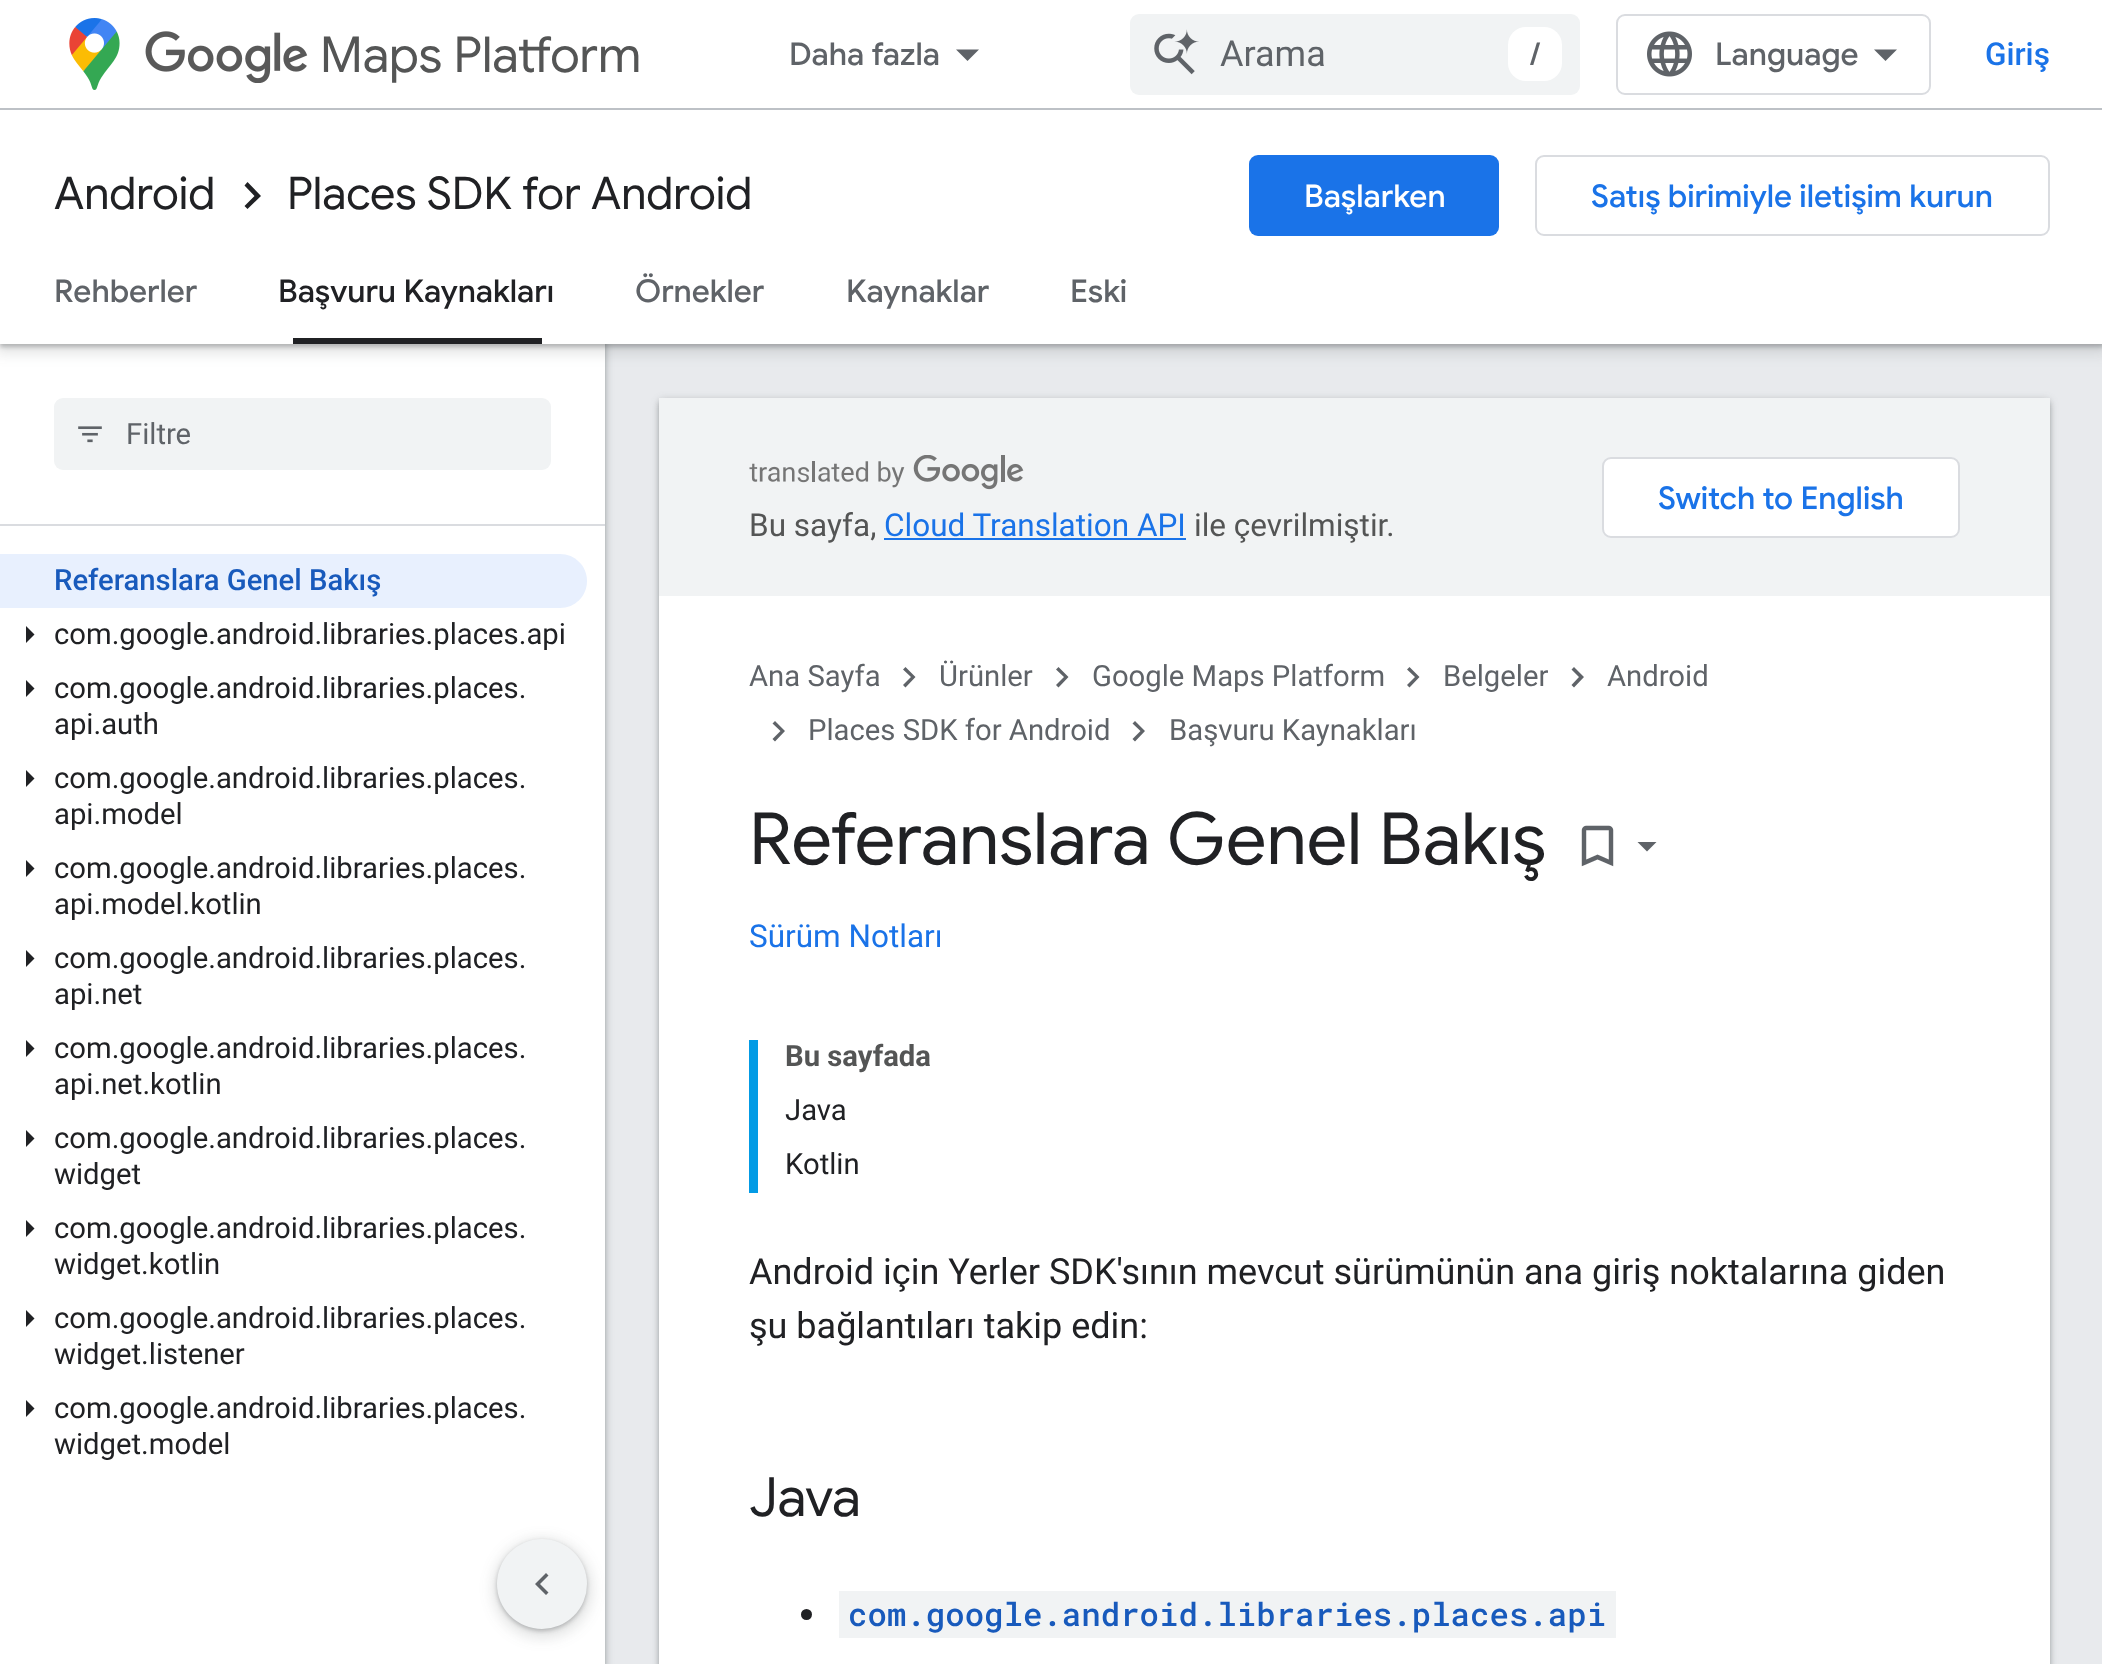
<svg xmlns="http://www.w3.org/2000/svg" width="2102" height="1664">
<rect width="100%" height="100%" fill="#e8eaed"/>
<rect x="-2" width="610" height="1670" fill="#3c404326" filter="blur(3.5px)"/>
<rect y="2" width="605" height="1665" fill="#3c40434d" filter="blur(2px)"/>
<rect y="344" width="605" height="1320" fill="#fff"/>
<rect x="-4" y="110" width="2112" height="243" fill="#3c404326" filter="blur(7px)"/>
<rect y="113" width="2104" height="234" fill="#3c40434d" filter="blur(2px)"/>
<rect width="2102" height="108" fill="#fff"/>
<rect y="108" width="2102" height="2" fill="#bdc1c6"/>
<image x="69" y="18" width="51" height="72" href="media/1.png"/>
<image x="145" y="31" width="163" height="52" href="media/2.png"/>
<text x="320" y="72" style="font-family:Google Sans;font-size:49.5px;fill:#545555">Maps Platform</text>
<text x="789" y="65" style="font-family:Google Sans;font-size:31.5px;font-weight:500;fill:#5f6368">Daha fazla</text>
<path d="M956 49.5h23l-11.5 11.5z" fill="#5f6368"/>
<rect x="1130" y="14" width="450" height="81" rx="9" fill="#f1f3f4"/>
<image x="1154" y="29" width="45" height="46" href="media/3.png"/>
<text x="1220" y="66" style="font-family:Roboto;font-size:36px;fill:#5f6368">Arama</text>
<rect x="1508" y="27" width="54" height="54" rx="18" fill="#fff"/>
<text x="1530" y="65" style="font-family:Google Sans;font-size:31.5px;font-weight:500;fill:#5f6368">/</text>
<rect x="1617" y="15" width="313" height="79" rx="8" fill="none" stroke="#dadce0" stroke-width="2"/>
<image x="1647" y="31" width="45" height="46" href="media/4.png"/>
<text x="1715" y="65" style="font-family:Google Sans;font-size:31.5px;font-weight:500;fill:#5f6368">Language</text>
<path d="M1885.5 61l-11.5-11.5h23z" fill="#5f6368"/>
<text x="1985" y="65" style="font-family:Roboto;font-size:31.5px;font-weight:500;fill:#1a73e8">Giriş</text>
<rect y="110" width="2102" height="234" fill="#fff"/>
<text x="54" y="209" style="font-family:Google Sans;font-size:45px;fill:#202124">Android</text>
<path d="M247.5 182l13.5 14l-13.5 13l-3-3l10-10l-10-10.5z" fill="#202124"/>
<text x="287" y="209" style="font-family:Google Sans;font-size:45px;fill:#202124">Places SDK for Android</text>
<rect x="1249" y="155" width="250" height="81" rx="9" fill="#1a73e8"/>
<text x="1304" y="207" style="font-family:Google Sans;font-size:31.5px;font-weight:500;fill:#fff">Başlarken</text>
<rect x="1536" y="156" width="513" height="79" rx="8" fill="none" stroke="#dadce0" stroke-width="2"/>
<text x="1591" y="207" style="font-family:Google Sans;font-size:31.5px;font-weight:500;fill:#1a73e8">Satış birimiyle iletişim kurun</text>
<text x="54" y="302" style="font-family:Google Sans;font-size:31.5px;font-weight:500;fill:#5f6368">Rehberler</text>
<text x="278" y="302" style="font-family:Google Sans;font-size:31.5px;font-weight:500;fill:#202124">Başvuru Kaynakları</text>
<rect x="293" y="338" width="249" height="6" fill="#202124"/>
<text x="635" y="302" style="font-family:Google Sans;font-size:31.5px;font-weight:500;fill:#5f6368">Örnekler</text>
<text x="846" y="302" style="font-family:Google Sans;font-size:31.5px;font-weight:500;fill:#5f6368">Kaynaklar</text>
<text x="1070" y="302" style="font-family:Google Sans;font-size:31.5px;font-weight:500;fill:#5f6368">Eski</text>
<rect y="524" width="605" height="2" fill="#dadce0"/>
<rect x="54" y="398" width="497" height="72" rx="9" fill="#f1f3f4"/>
<image x="78" y="426" width="24" height="17" href="media/5.png"/>
<text x="126" y="444" style="font-family:Roboto;font-size:29.25px;fill:#5f6368">Filtre</text>
<path d="M0 554h560c15 0 27 12 27 27c0 15-12 27-27 27h-560z" fill="#e8f0fe"/>
<text x="54" y="590" style="font-family:Roboto;font-size:29.25px;font-weight:500;fill:#185abc">Referanslara Genel Bakış</text>
<path d="M26 643v-17l8.5 8.5z" fill="#202124"/>
<text x="54" y="644" style="font-family:Roboto;font-size:29.25px;fill:#202124">com.google.android.libraries.places.api</text>
<path d="M26 697v-17l8.5 8.5z" fill="#202124"/>
<text x="54" y="698" style="font-family:Roboto;font-size:29.25px;fill:#202124">com.google.android.libraries.places.</text>
<text x="54" y="734" style="font-family:Roboto;font-size:29.25px;fill:#202124">api.auth</text>
<path d="M26 787v-17l8.5 8.5z" fill="#202124"/>
<text x="54" y="788" style="font-family:Roboto;font-size:29.25px;fill:#202124">com.google.android.libraries.places.</text>
<text x="54" y="824" style="font-family:Roboto;font-size:29.25px;fill:#202124">api.model</text>
<path d="M26 877v-17l8.5 8.5z" fill="#202124"/>
<text x="54" y="878" style="font-family:Roboto;font-size:29.25px;fill:#202124">com.google.android.libraries.places.</text>
<text x="54" y="914" style="font-family:Roboto;font-size:29.25px;fill:#202124">api.model.kotlin</text>
<path d="M26 967v-17l8.5 8.5z" fill="#202124"/>
<text x="54" y="968" style="font-family:Roboto;font-size:29.25px;fill:#202124">com.google.android.libraries.places.</text>
<text x="54" y="1004" style="font-family:Roboto;font-size:29.25px;fill:#202124">api.net</text>
<path d="M26 1057v-17l8.5 8.5z" fill="#202124"/>
<text x="54" y="1058" style="font-family:Roboto;font-size:29.25px;fill:#202124">com.google.android.libraries.places.</text>
<text x="54" y="1094" style="font-family:Roboto;font-size:29.25px;fill:#202124">api.net.kotlin</text>
<path d="M26 1147v-17l8.5 8.5z" fill="#202124"/>
<text x="54" y="1148" style="font-family:Roboto;font-size:29.25px;fill:#202124">com.google.android.libraries.places.</text>
<text x="54" y="1184" style="font-family:Roboto;font-size:29.25px;fill:#202124">widget</text>
<path d="M26 1237v-17l8.5 8.5z" fill="#202124"/>
<text x="54" y="1238" style="font-family:Roboto;font-size:29.25px;fill:#202124">com.google.android.libraries.places.</text>
<text x="54" y="1274" style="font-family:Roboto;font-size:29.25px;fill:#202124">widget.kotlin</text>
<path d="M26 1327v-17l8.5 8.5z" fill="#202124"/>
<text x="54" y="1328" style="font-family:Roboto;font-size:29.25px;fill:#202124">com.google.android.libraries.places.</text>
<text x="54" y="1364" style="font-family:Roboto;font-size:29.25px;fill:#202124">widget.listener</text>
<path d="M26 1417v-17l8.5 8.5z" fill="#202124"/>
<text x="54" y="1418" style="font-family:Roboto;font-size:29.25px;fill:#202124">com.google.android.libraries.places.</text>
<text x="54" y="1454" style="font-family:Roboto;font-size:29.25px;fill:#202124">widget.model</text>
<rect x="657" y="398" width="1395" height="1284" rx="7" fill="#3c404326" filter="blur(3.5px)"/>
<rect x="659" y="401" width="1391" height="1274" rx="5" fill="#3c40434d" filter="blur(2px)"/>
<rect x="659" y="596" width="1391" height="1068" fill="#fff"/>
<rect x="659" y="398" width="1391" height="198" fill="#f1f3f4"/>
<rect x="1603" y="458" width="356" height="79" rx="8" fill="#fff" stroke="#dadce0" stroke-width="2"/>
<text x="1658" y="509" style="font-family:Google Sans;font-size:31.5px;font-weight:500;fill:#1a73e8">Switch to English</text>
<image x="749" y="455" width="275" height="35" href="media/6.png"/>
<text x="749" y="536" style="font-family:Roboto;font-size:31.5px;fill:#545555">Bu sayfa,</text>
<text x="884" y="536" style="font-family:Roboto;font-size:31.5px;fill:#1a73e8">Cloud Translation API</text>
<rect x="884" y="538" width="302" height="2" fill="#1a73e8"/>
<text x="1194" y="536" style="font-family:Roboto;font-size:31.5px;fill:#545555">ile çevrilmiştir.</text>
<text x="749" y="686" style="font-family:Roboto;font-size:29.25px;fill:#5f6368">Ana Sayfa</text>
<path d="M905.5 667l10 10l-10 10.5l-2.5-2.5l8-8l-8-7.5z" fill="#5f6368"/>
<text x="939" y="686" style="font-family:Roboto;font-size:29.25px;fill:#5f6368">Ürünler</text>
<path d="M1058.5 667l10 10l-10 10.5l-2.5-2.5l8-8l-8-7.5z" fill="#5f6368"/>
<text x="1092" y="686" style="font-family:Roboto;font-size:29.25px;fill:#5f6368">Google Maps Platform</text>
<path d="M1409.5 667l10 10l-10 10.5l-2.5-2.5l8-8l-8-7.5z" fill="#5f6368"/>
<text x="1443" y="686" style="font-family:Roboto;font-size:29.25px;fill:#5f6368">Belgeler</text>
<path d="M1574 667l10 10l-10 10.5l-2.5-2.5l7.5-8l-7.5-7.5z" fill="#5f6368"/>
<text x="1607" y="686" style="font-family:Roboto;font-size:29.25px;fill:#5f6368">Android</text>
<path d="M775 721l10 10l-10 10.5l-2.5-2.5l8-8l-8-7.5z" fill="#5f6368"/>
<text x="808" y="740" style="font-family:Roboto;font-size:29.25px;fill:#5f6368">Places SDK for Android</text>
<path d="M1135 721l10 10l-10 10.5l-2.5-2.5l8-8l-8-7.5z" fill="#5f6368"/>
<text x="1169" y="740" style="font-family:Roboto;font-size:29.25px;fill:#5f6368">Başvuru Kaynakları</text>
<text x="749" y="864" style="font-family:Google Sans;font-size:72px;fill:#202124">Referanslara Genel Bakış</text>
<image x="1581" y="825" width="33" height="42" href="media/7.png"/>
<path d="M1637.5 842h19l-9.5 9.5z" fill="#5f6368"/>
<text x="749" y="947" style="font-family:Roboto;font-size:31.5px;fill:#1a73e8">Sürüm Notları</text>
<rect x="749" y="1040" width="9" height="153" fill="#039be5"/>
<text x="785" y="1066" style="font-family:Roboto;font-size:29.25px;font-weight:bold;fill:#545555">Bu sayfada</text>
<text x="785" y="1120" style="font-family:Roboto;font-size:29.25px;fill:#202124">Java</text>
<text x="785" y="1174" style="font-family:Roboto;font-size:29.25px;fill:#202124">Kotlin</text>
<text x="749" y="1284" style="font-family:Roboto;font-size:36px;fill:#202124">Android için Yerler SDK'sının mevcut sürümünün ana giriş noktalarına giden</text>
<text x="749" y="1338" style="font-family:Roboto;font-size:36px;fill:#202124">şu bağlantıları takip edin:</text>
<text x="749" y="1516" style="font-family:Google Sans;font-size:54px;fill:#202124">Java</text>
<circle cx="806.5" cy="1614.5" r="5.5" fill="#202124"/>
<rect x="839" y="1591" width="777" height="47" fill="#f1f3f4"/>
<text x="848" y="1626" style="font-family:Roboto Mono;font-size:32.4px;font-weight:500;fill:#185abc">com.google.android.libraries.places.api</text>
<rect x="493" y="1539" width="99" height="99" rx="49.5" fill="#3c404326" filter="blur(7px)"/>
<rect x="497" y="1541" width="90" height="90" rx="45" fill="#3c40434d" filter="blur(2px)"/>
<circle cx="542" cy="1584" r="45" fill="#f1f3f4"/>
<path d="M548.5 1575.5l-8.5 8.5l8.5 8.5l-2.5 2.5l-11-11l11-11z" fill="#5f6368"/>
</svg>
